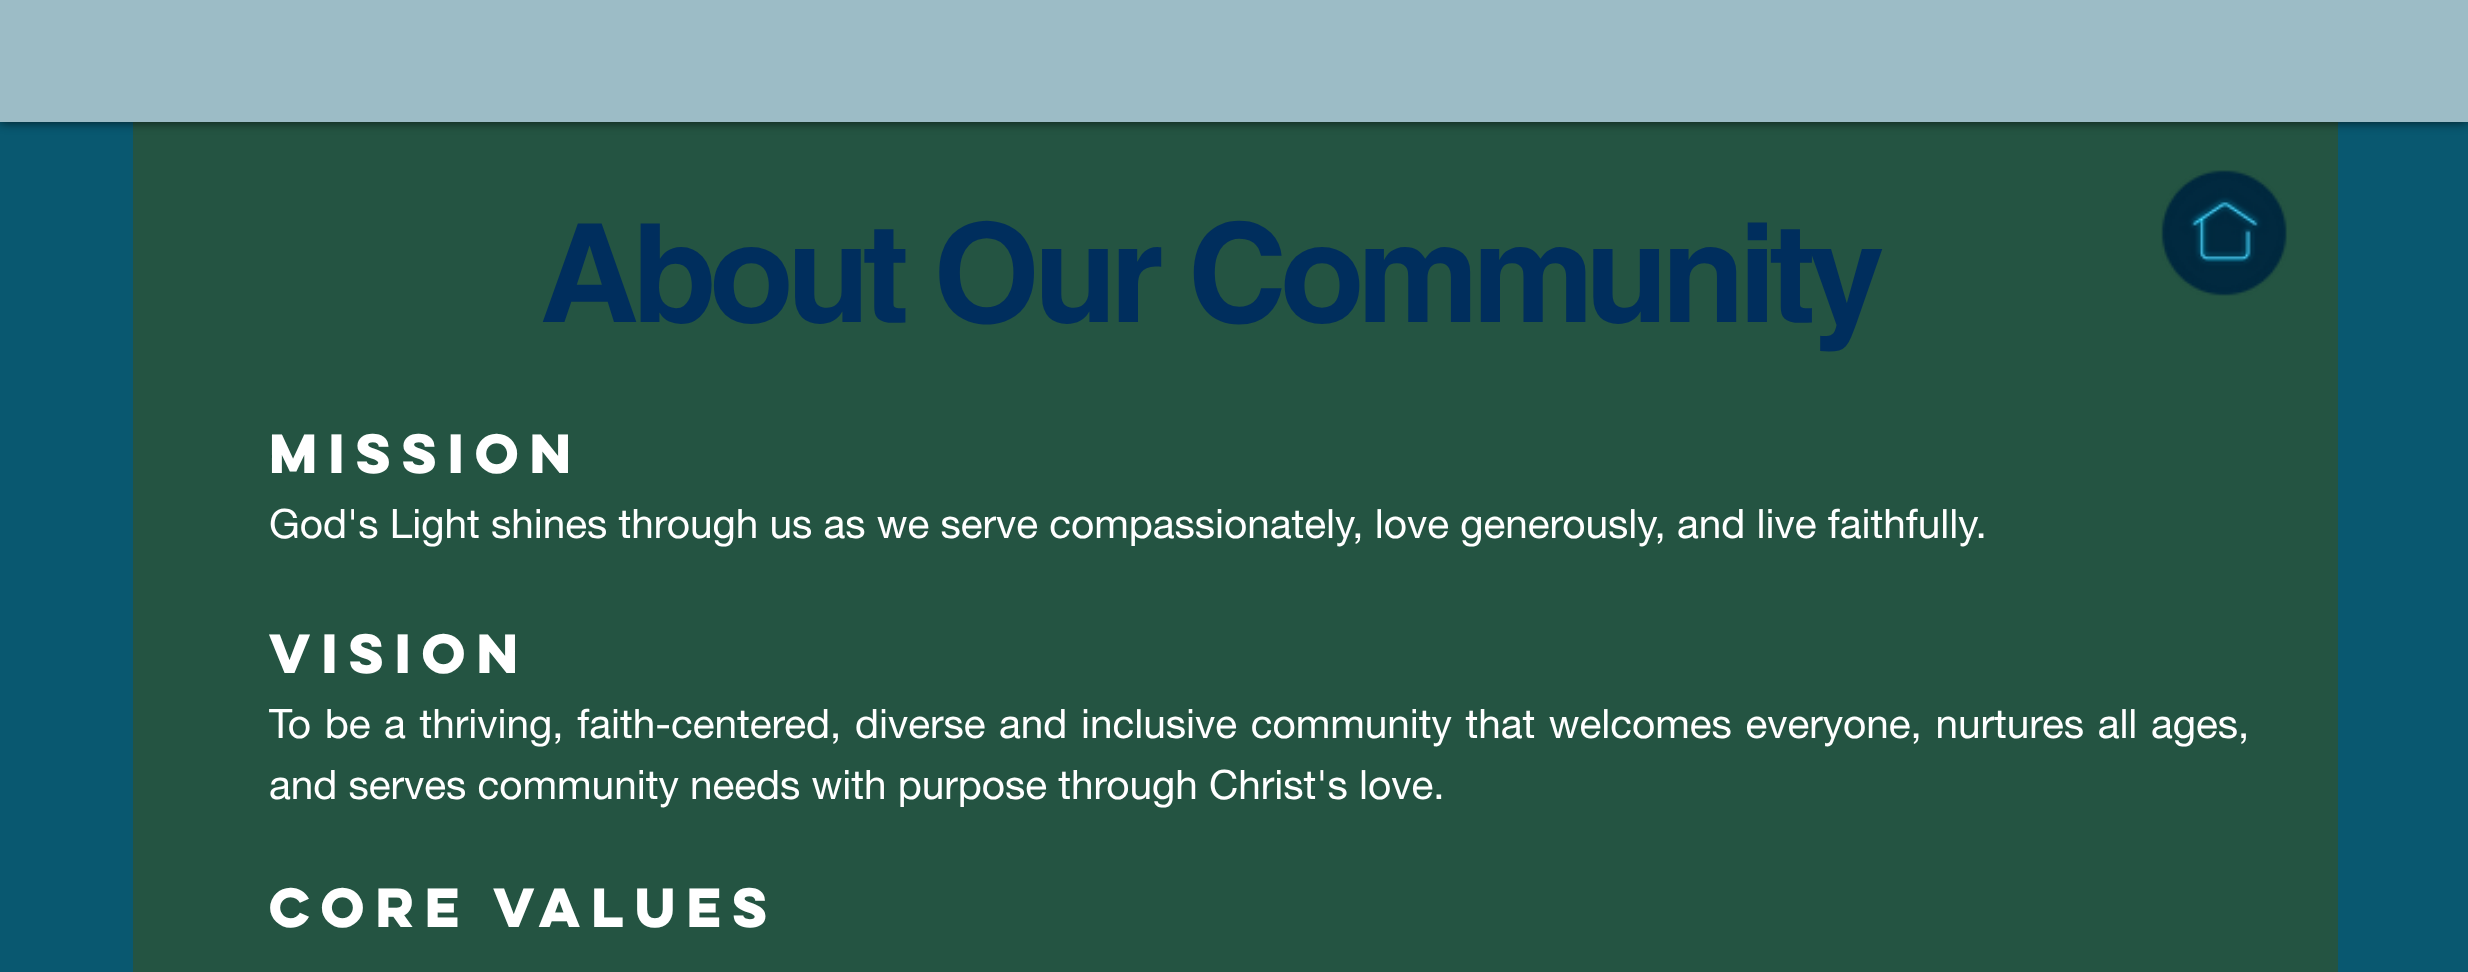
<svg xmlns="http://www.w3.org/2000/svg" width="2468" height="972">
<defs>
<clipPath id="clip1"><path d="M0 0h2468v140h-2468zm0 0h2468v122h-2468z" clip-rule="evenodd"/></clipPath>
</defs>
<rect width="100%" height="100%" fill="#095870"/>
<rect x="133" y="122" width="2205" height="850" fill="#245442"/>
<g clip-path="url(#clip1)">
<rect width="2468" height="122" fill="#000000b3" filter="blur(5.5px)"/>
</g>
<rect width="2468" height="122" fill="#ffffff99"/>
<text x="540" y="322" style="font-family:helvetica;font-size:137.25px;font-weight:bold;letter-spacing:-6.9px;fill:#002e5d">About Our Community</text>
<image x="2161" y="170" width="126" height="126" href="media/1.png"/>
<text x="269" y="473" style="font-family:'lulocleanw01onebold';font-size:49.5px;font-weight:bold;fill:#fff">Mission</text>
<text x="269" y="538" style="font-family:helvetica neue;font-size:40.5px;fill:#fff">God's Light shines through us as we serve compassionately, love generously, and live faithfully.</text>
<text x="269" y="673" style="font-family:'lulocleanw01onebold';font-size:49.5px;font-weight:bold;fill:#fff">Vision</text>
<text x="269" y="738" word-spacing="2.4" style="font-family:helvetica neue;font-size:40.5px;fill:#fff">To be a thriving, faith-centered, diverse and inclusive community that welcomes everyone, nurtures all ages,</text>
<text x="269" y="799" style="font-family:helvetica neue;font-size:40.5px;fill:#fff">and serves community needs with purpose through Christ's love.</text>
<text x="269" y="927" style="font-family:'lulocleanw01onebold';font-size:49.5px;font-weight:bold;fill:#fff">Core Values</text>
</svg>
